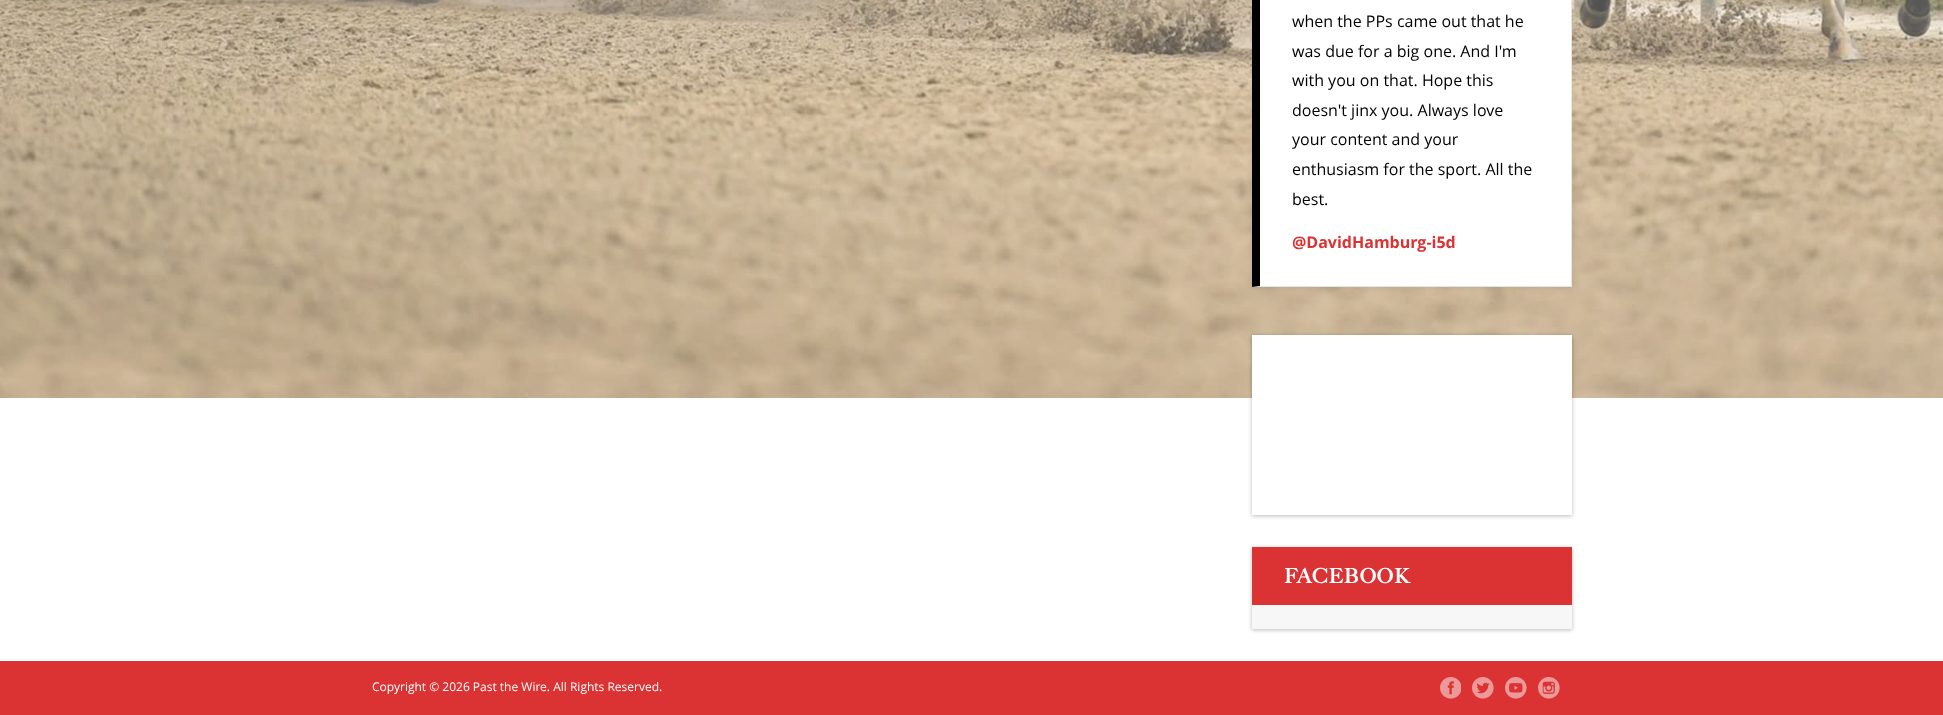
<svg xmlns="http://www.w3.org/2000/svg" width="1943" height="715">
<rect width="100%" height="100%" fill="#fff"/>
<image x="0" y="0" width="1943" height="398" href="media/1.png"/>
<rect x="1252" y="-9" width="320" height="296" fill="#00000012" filter="blur(3px)"/>
<rect x="1252" width="320" height="287" fill="#fff"/>
<path d="M1572-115v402l-1-1v-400z" fill="#e6e6e6"/>
<path d="M1572 287h-320l8-1h311z" fill="#0000001a"/>
<path d="M1252 287v-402l8 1v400z" fill="#000"/>
<text x="1292" y="27" style="font-family:Open Sans;font-size:16px;fill:#000">when the PPs came out that he</text>
<text x="1292" y="57" style="font-family:Open Sans;font-size:16px;fill:#000">was due for a big one. And I'm</text>
<text x="1292" y="86" style="font-family:Open Sans;font-size:16px;fill:#000">with you on that. Hope this</text>
<text x="1292" y="116" style="font-family:Open Sans;font-size:16px;fill:#000">doesn't jinx you. Always love</text>
<text x="1292" y="145" style="font-family:Open Sans;font-size:16px;fill:#000">your content and your</text>
<text x="1292" y="175" style="font-family:Open Sans;font-size:16px;fill:#000">enthusiasm for the sport. All the</text>
<text x="1292" y="205" style="font-family:Open Sans;font-size:16px;fill:#000">best.</text>
<text x="1292" y="248" style="font-family:Open Sans;font-size:16px;font-weight:bold;fill:#db3333">@DavidHamburg-i5d</text>
<rect x="1252" y="336" width="320" height="180" fill="#00000045" filter="blur(2px)"/>
<rect x="1252" y="335" width="320" height="180" fill="#fff"/>
<rect x="1252" y="548" width="320" height="82" fill="#00000045" filter="blur(2px)"/>
<rect x="1252" y="605" width="320" height="24" fill="#f7f7f7"/>
<rect x="1252" y="547" width="320" height="58" fill="#db3333"/>
<text x="1284" y="583" style="font-family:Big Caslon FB;font-size:20px;font-weight:bold;letter-spacing:1px;fill:#fff">FACEBOOK</text>
<rect y="661" width="1943" height="54" fill="#db3333"/>
<text x="372" y="691" style="font-family:Open Sans;font-size:12px;fill:#fff">Copyright © 2026 Past the Wire. All Rights Reserved.</text>
<image x="1440" y="677" width="21" height="22" href="media/2.png"/>
<image x="1472" y="677" width="22" height="22" href="media/3.png"/>
<image x="1505" y="677" width="22" height="22" href="media/4.png"/>
<image x="1538" y="677" width="22" height="22" href="media/5.png"/>
</svg>
